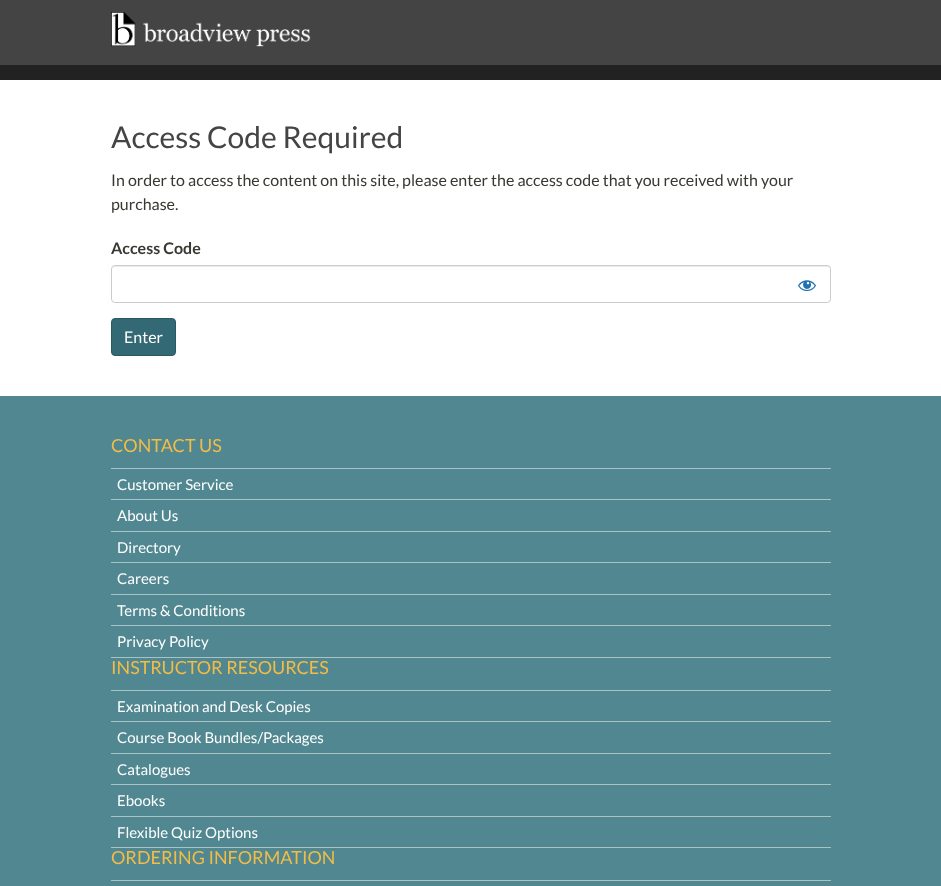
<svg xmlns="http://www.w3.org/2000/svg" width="941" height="886">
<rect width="100%" height="100%" fill="#fff"/>
<rect width="941" height="65" fill="#444"/>
<image x="111" y="12" width="200" height="35" href="media/1.png"/>
<rect y="65" width="941" height="15" fill="#222"/>
<text x="111" y="148" style="font-family:Lato;font-size:30px;fill:#444">Access Code Required</text>
<text x="111" y="186" style="font-family:Lato;font-size:16px;fill:#373932">In order to access the content on this site, please enter the access code that you received with your</text>
<text x="111" y="210" style="font-family:Lato;font-size:16px;fill:#373932">purchase.</text>
<text x="111" y="254" style="font-family:Lato;font-size:16px;font-weight:bold;fill:#373932">Access Code</text>
<path d="M115 267h712c2 0 3 1 3 3c0-2-1-4-3-4h-712c-2 0-3 2-3 4c0-2 1-3 3-3z" fill="#ececec"/>
<rect x="111.5" y="265.5" width="719" height="37" rx="3.5" fill="none" stroke="#ccc"/>
<image x="798" y="280" width="18" height="11" href="media/2.png"/>
<rect x="111.5" y="318.5" width="64" height="37" rx="3.5" fill="#336974" stroke="#2b5962"/>
<text x="124" y="343" style="font-family:Lato;font-size:16px;fill:#fff">Enter</text>
<rect y="396" width="941" height="490" fill="#508790"/>
<text x="111" y="452" style="font-family:Lato;font-size:18px;fill:#f2bc47">CONTACT US</text>
<rect x="111" y="468" width="720" height="1" fill="#a8c3c8"/>
<rect x="111" y="499" width="720" height="1" fill="#a8c3c8"/>
<text x="117" y="490" style="font-family:Lato;font-size:15px;fill:#fff">Customer Service</text>
<rect x="111" y="531" width="720" height="1" fill="#a8c3c8"/>
<text x="117" y="521" style="font-family:Lato;font-size:15px;fill:#fff">About Us</text>
<rect x="111" y="562" width="720" height="1" fill="#a8c3c8"/>
<text x="117" y="553" style="font-family:Lato;font-size:15px;fill:#fff">Directory</text>
<rect x="111" y="594" width="720" height="1" fill="#a8c3c8"/>
<text x="117" y="584" style="font-family:Lato;font-size:15px;fill:#fff">Careers</text>
<rect x="111" y="625" width="720" height="1" fill="#a8c3c8"/>
<text x="117" y="616" style="font-family:Lato;font-size:15px;fill:#fff">Terms &amp; Conditions</text>
<rect x="111" y="657" width="720" height="1" fill="#a8c3c8"/>
<text x="117" y="647" style="font-family:Lato;font-size:15px;fill:#fff">Privacy Policy</text>
<text x="111" y="674" style="font-family:Lato;font-size:18px;fill:#f2bc47">INSTRUCTOR RESOURCES</text>
<rect x="111" y="690" width="720" height="1" fill="#a8c3c8"/>
<rect x="111" y="721" width="720" height="1" fill="#a8c3c8"/>
<text x="117" y="712" style="font-family:Lato;font-size:15px;fill:#fff">Examination and Desk Copies</text>
<rect x="111" y="753" width="720" height="1" fill="#a8c3c8"/>
<text x="117" y="743" style="font-family:Lato;font-size:15px;fill:#fff">Course Book Bundles/Packages</text>
<rect x="111" y="784" width="720" height="1" fill="#a8c3c8"/>
<text x="117" y="775" style="font-family:Lato;font-size:15px;fill:#fff">Catalogues</text>
<rect x="111" y="816" width="720" height="1" fill="#a8c3c8"/>
<text x="117" y="806" style="font-family:Lato;font-size:15px;fill:#fff">Ebooks</text>
<rect x="111" y="847" width="720" height="1" fill="#a8c3c8"/>
<text x="117" y="838" style="font-family:Lato;font-size:15px;fill:#fff">Flexible Quiz Options</text>
<text x="111" y="864" style="font-family:Lato;font-size:18px;fill:#f2bc47">ORDERING INFORMATION</text>
<rect x="111" y="880" width="720" height="1" fill="#a8c3c8"/>
</svg>
